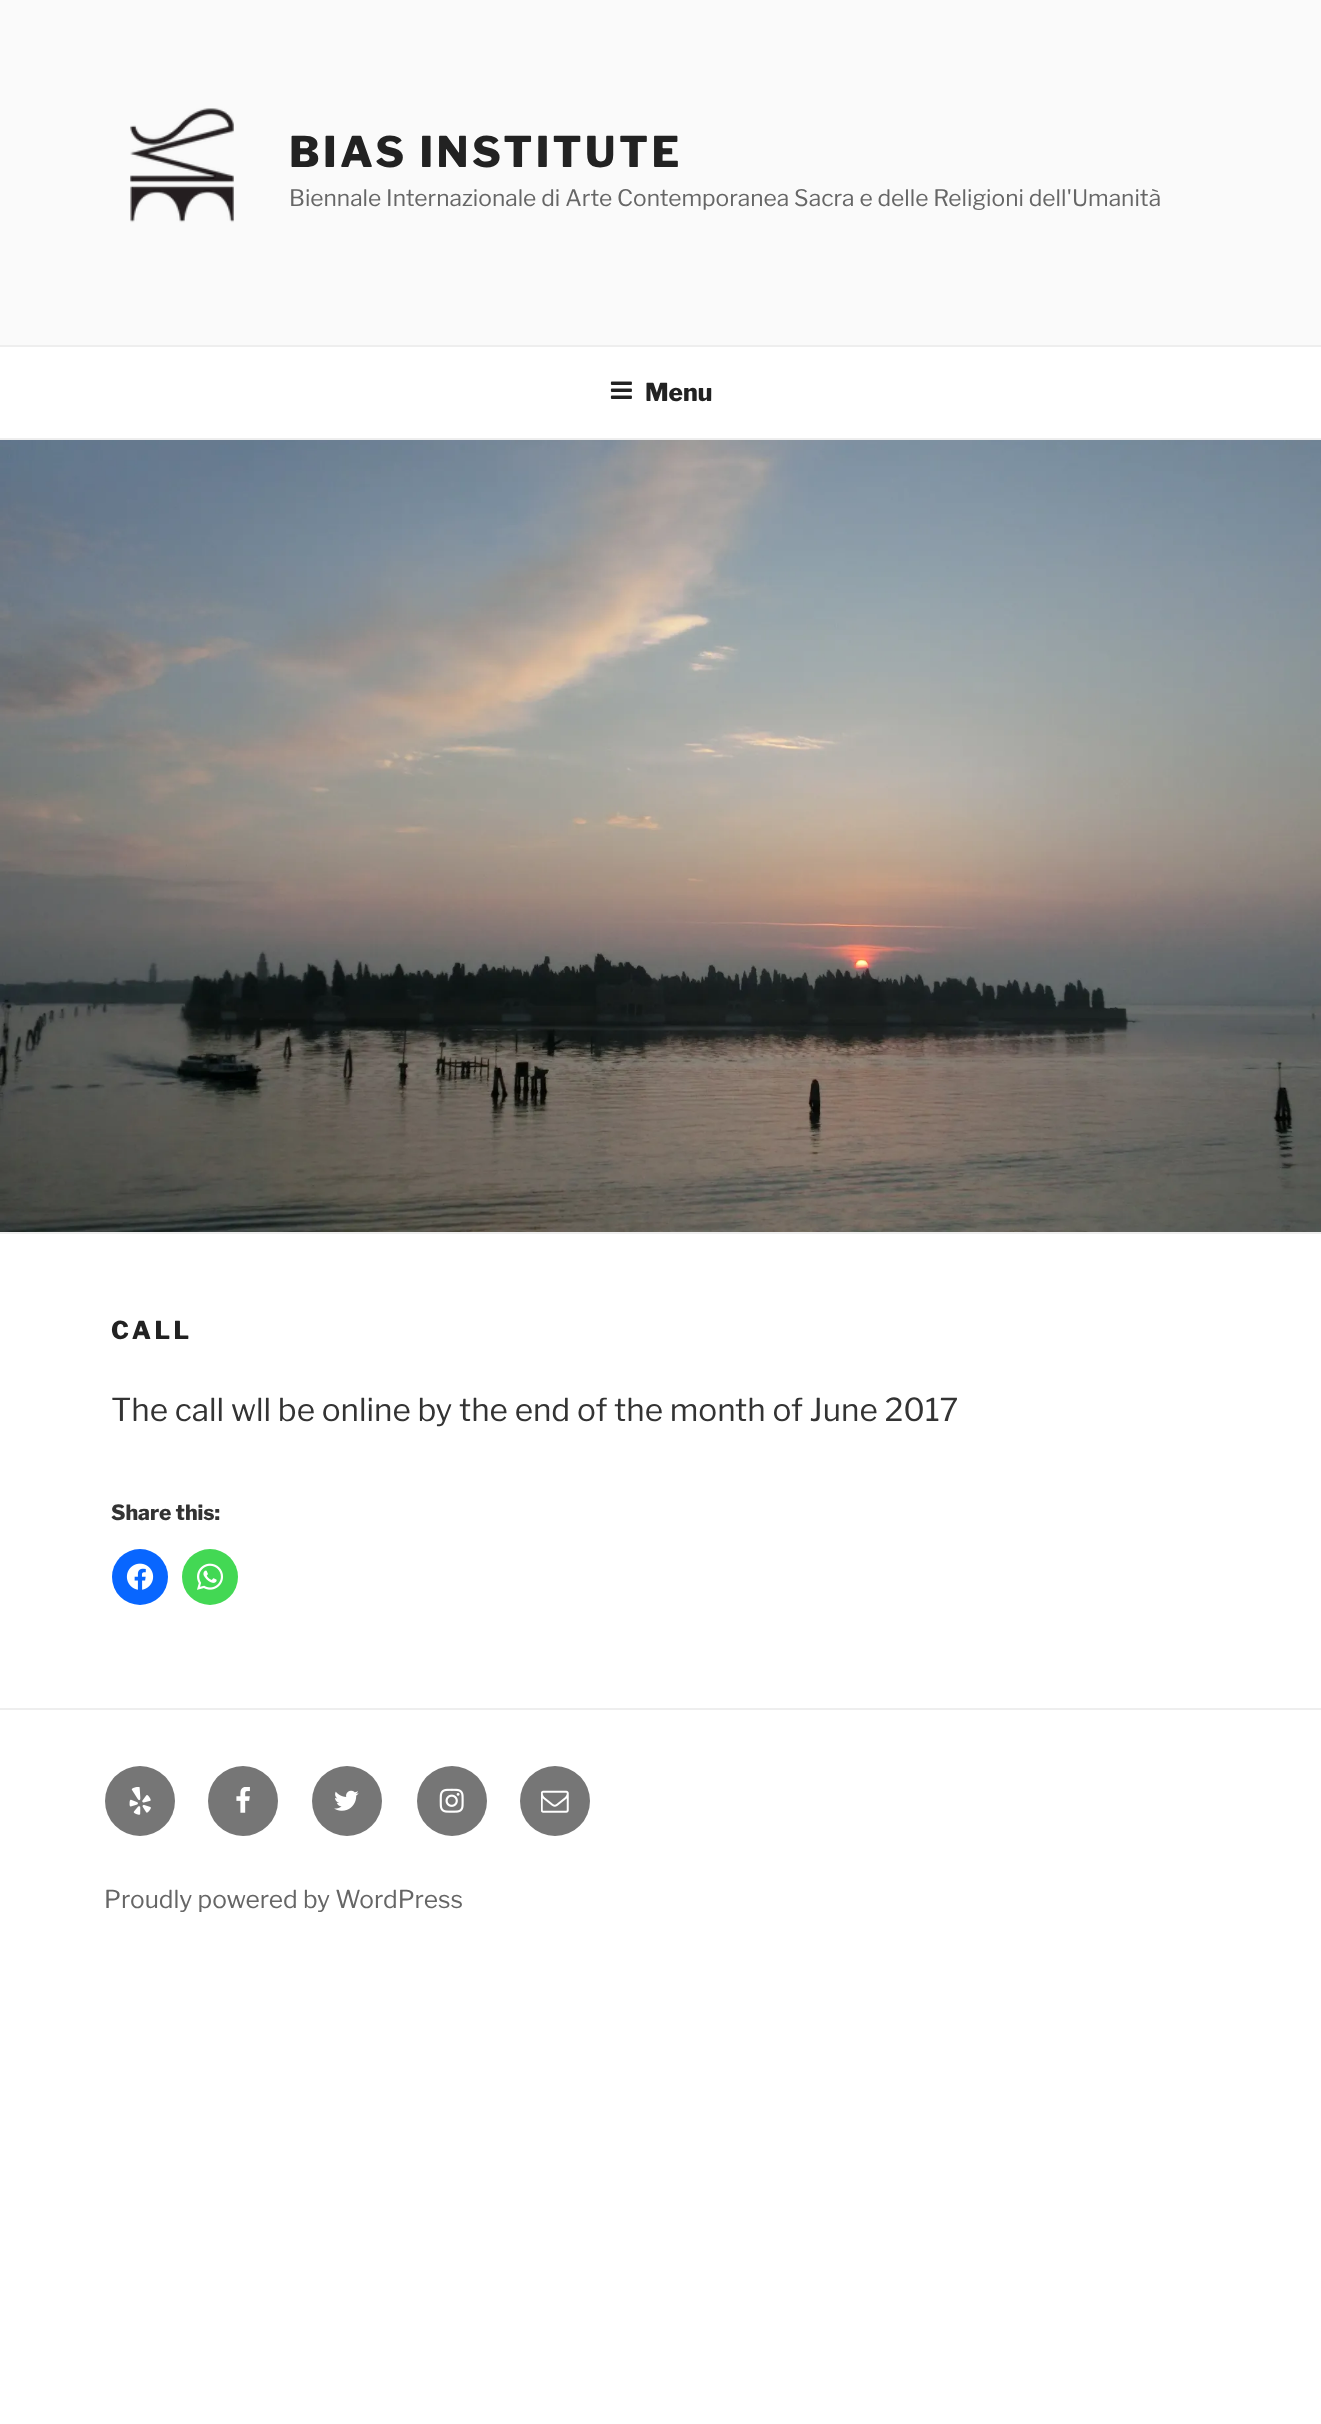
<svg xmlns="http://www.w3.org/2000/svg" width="1321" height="2424">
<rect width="100%" height="100%" fill="#fff"/>
<rect width="1321" height="345" fill="#fafafa"/>
<image x="130" y="108" width="104" height="115" href="media/1.png"/>
<text x="289" y="167" style="font-family:Libre Franklin;font-size:42px;font-weight:100;letter-spacing:3.4px;fill:#222">BIAS INSTITUTE</text>
<text x="289" y="206" style="font-family:'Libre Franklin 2';font-size:22.75px;font-weight:100;fill:#666">Biennale Internazionale di Arte Contemporanea Sacra e delle Religioni dell'Umanità</text>
<rect y="345" width="1321" height="2" fill="#eee"/>
<rect y="438" width="1321" height="2" fill="#eee"/>
<image x="610" y="381" width="22" height="18" href="media/2.png"/>
<text x="645" y="401" style="font-family:Libre Franklin;font-size:24.5px;font-weight:100;fill:#222">Menu</text>
<rect y="1232" width="1321" height="2" fill="#eee"/>
<image x="0" y="440" width="1321" height="792" href="media/3.png"/>
<text x="111" y="1339" style="font-family:Libre Franklin;font-size:24.5px;font-weight:100;letter-spacing:3.5px;fill:#222">CALL</text>
<text x="111" y="1421" style="font-family:'Libre Franklin 2';font-size:31.5px;font-weight:100;fill:#333">The call wll be online by the end of the month of June 2017</text>
<text x="111" y="1520" style="font-family:Libre Franklin;font-size:21px;font-weight:100;fill:#333">Share this:</text>
<circle cx="140" cy="1577" r="28" fill="#0866ff"/>
<image x="126" y="1563" width="28" height="27" href="media/4.png"/>
<circle cx="210" cy="1577" r="28" fill="#43d854"/>
<image x="197" y="1563" width="26" height="27" href="media/5.png"/>
<rect y="1708" width="1321" height="2" fill="#eee"/>
<circle cx="140" cy="1801" r="35" fill="#767676"/>
<image x="129" y="1787" width="22" height="28" href="media/6.png"/>
<circle cx="243" cy="1801" r="35" fill="#767676"/>
<image x="236" y="1787" width="14" height="26" href="media/7.png"/>
<circle cx="347" cy="1801" r="35" fill="#767676"/>
<image x="334" y="1790" width="25" height="21" href="media/8.png"/>
<circle cx="452" cy="1801" r="35" fill="#767676"/>
<image x="439" y="1788" width="25" height="25" href="media/9.png"/>
<circle cx="555" cy="1801" r="35" fill="#767676"/>
<image x="541" y="1790" width="28" height="23" href="media/10.png"/>
<text x="104" y="1908" style="font-family:'Libre Franklin 2';font-size:24.5px;font-weight:100;fill:#666">Proudly powered by WordPress</text>
</svg>
